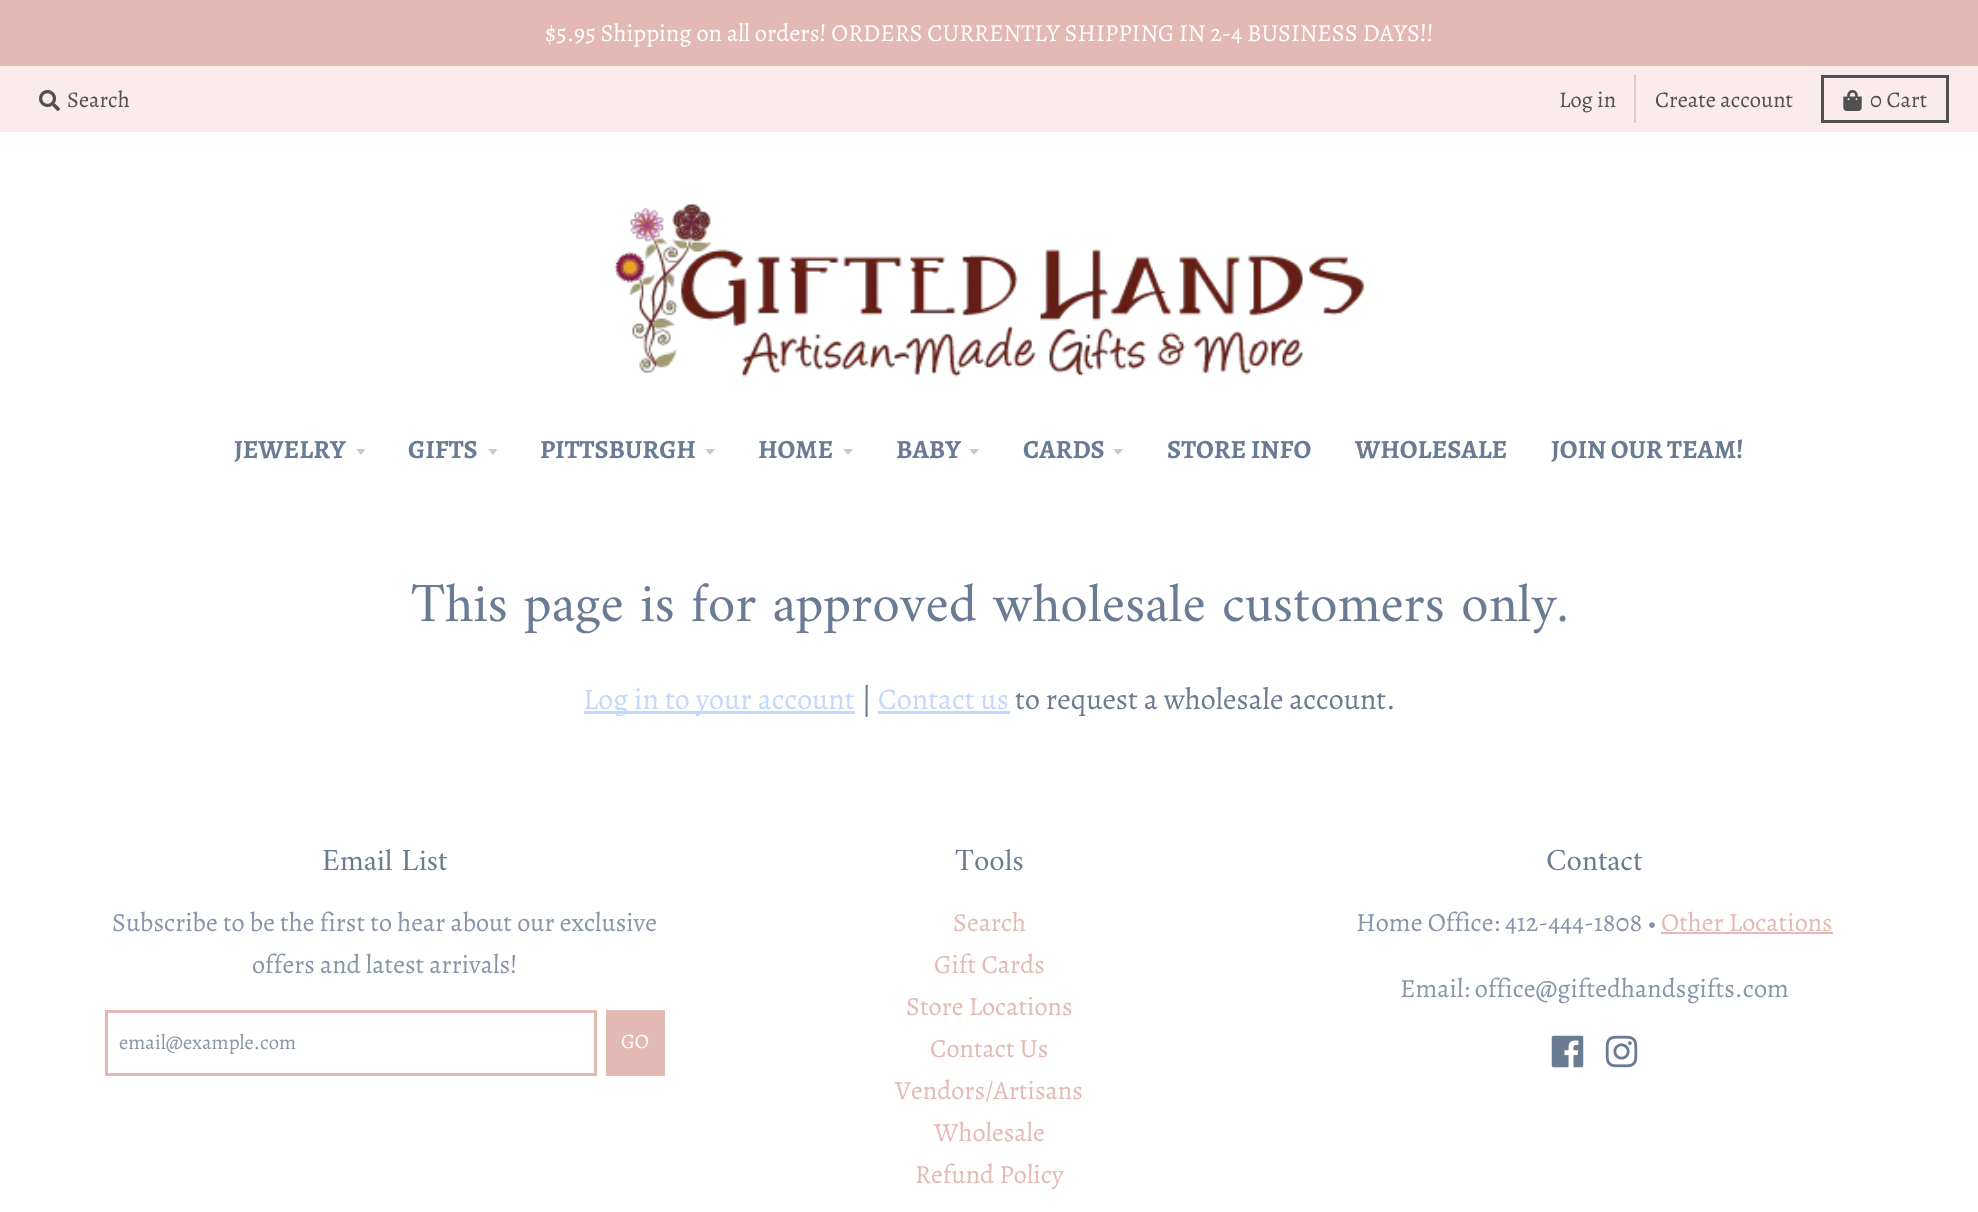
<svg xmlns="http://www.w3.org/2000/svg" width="1978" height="1212">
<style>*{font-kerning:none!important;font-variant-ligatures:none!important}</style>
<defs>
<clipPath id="clip1"><rect x="356" y="449" width="12" height="7"/></clipPath>
<clipPath id="clip2"><rect x="488" y="449" width="12" height="7"/></clipPath>
<clipPath id="clip3"><rect x="705" y="449" width="12" height="7"/></clipPath>
<clipPath id="clip4"><rect x="843" y="449" width="12" height="7"/></clipPath>
<clipPath id="clip5"><rect x="969" y="449" width="12" height="7"/></clipPath>
<clipPath id="clip6"><rect x="1113" y="449" width="12" height="7"/></clipPath>
</defs>
<rect width="100%" height="100%" fill="#fff"/>
<rect width="1978" height="66" fill="#e3bab3"/>
<text x="545" y="41" style="font-family:Alegreya;font-size:24.4px;fill:#fff">$5.95 Shipping on all orders! ORDERS CURRENTLY SHIPPING IN 2-4 BUSINESS DAYS!!</text>
<rect y="66" width="1978" height="66" fill="#faecec"/>
<image x="39" y="90" width="21" height="21" href="media/1.png"/>
<text x="67" y="107" style="font-family:Alegreya;font-size:22.5px;fill:#505050">Search</text>
<rect x="1634" y="75" width="2" height="48" fill="#d8cccc"/>
<text x="1559" y="107" style="font-family:Alegreya;font-size:22.5px;fill:#505050">Log in</text>
<text x="1655" y="107" style="font-family:Alegreya;font-size:22.5px;fill:#505050">Create account</text>
<rect x="1822.5" y="76.5" width="125" height="45" fill="none" stroke="#505050" stroke-width="3"/>
<image x="1843" y="90" width="19" height="21" href="media/2.png"/>
<text x="1870" y="107" style="font-family:Alegreya;font-size:22.5px;fill:#505050">0 Cart</text>
<image x="614" y="202" width="751" height="175" href="media/3.png"/>
<text x="234" y="458" style="font-family:Alegreya;font-size:26.25px;font-weight:bold;fill:#6a7b94">JEWELRY</text>
<g clip-path="url(#clip1)">
<path d="M355.5 448.5l5.5 6.5l5-6.5z" fill="#c3cad4"/>
</g>
<text x="408" y="458" style="font-family:Alegreya;font-size:26.25px;font-weight:bold;fill:#6a7b94">GIFTS</text>
<g clip-path="url(#clip2)">
<path d="M487.5 448.5l5.5 6.5l5-6.5z" fill="#c3cad4"/>
</g>
<text x="540" y="458" style="font-family:Alegreya;font-size:26.25px;font-weight:bold;fill:#6a7b94">PITTSBURGH</text>
<g clip-path="url(#clip3)">
<path d="M705 448.5l5 6.5l5.5-6.5z" fill="#c3cad4"/>
</g>
<text x="758" y="458" style="font-family:Alegreya;font-size:26.25px;font-weight:bold;fill:#6a7b94">HOME</text>
<g clip-path="url(#clip4)">
<path d="M843 448.5l5 6.5l5.5-6.5z" fill="#c3cad4"/>
</g>
<text x="896" y="458" style="font-family:Alegreya;font-size:26.25px;font-weight:bold;fill:#6a7b94">BABY</text>
<g clip-path="url(#clip5)">
<path d="M969 448.5l5 6.5l5.5-6.5z" fill="#c3cad4"/>
</g>
<text x="1023" y="458" style="font-family:Alegreya;font-size:26.25px;font-weight:bold;fill:#6a7b94">CARDS</text>
<g clip-path="url(#clip6)">
<path d="M1113 448.5l5 6.5l5.5-6.5z" fill="#c3cad4"/>
</g>
<text x="1167" y="458" style="font-family:Alegreya;font-size:26.25px;font-weight:bold;fill:#6a7b94">STORE INFO</text>
<text x="1355" y="458" style="font-family:Alegreya;font-size:26.25px;font-weight:bold;fill:#6a7b94">WHOLESALE</text>
<text x="1551" y="458" style="font-family:Alegreya;font-size:26.25px;font-weight:bold;fill:#6a7b94">JOIN OUR TEAM!</text>
<text x="411" y="621" style="font-family:Amiri;font-size:55.7px;fill:#6a7b94">This page is for approved wholesale customers only.</text>
<rect x="584" y="711" width="271" height="3" fill="#c0d9fd"/>
<text x="583" y="709" style="font-family:Alegreya;font-size:30px;fill:#c0d9fd">Log in to your account</text>
<text x="861" y="709" style="font-family:Alegreya;font-size:30px;fill:#6a7b94">|</text>
<text x="878" y="709" style="font-family:Alegreya;font-size:30px;fill:#c0d9fd">Contact us</text>
<rect x="878" y="711" width="132" height="3" fill="#c0d9fd"/>
<text x="1015" y="709" style="font-family:Alegreya;font-size:30px;fill:#6a7b94">to request a wholesale account.</text>
<text x="322" y="870" style="font-family:Amiri;font-size:31px;fill:#6a7b94">Email List</text>
<text x="112" y="931" style="font-family:Alegreya;font-size:26.25px;fill:#8795a9">Subscribe to be the first to hear about our exclusive</text>
<text x="252" y="973" style="font-family:Alegreya;font-size:26.25px;fill:#8795a9">offers and latest arrivals!</text>
<rect x="106.5" y="1011.5" width="489" height="63" fill="none" stroke="#e3bab3" stroke-width="3"/>
<text x="119" y="1049" style="font-family:Alegreya;font-size:20.6px;fill:#8795a9">email@example.com</text>
<rect x="606" y="1010" width="59" height="66" fill="#e3bab3"/>
<text x="621" y="1048" style="font-family:Alegreya;font-size:20.6px;fill:#fff">GO</text>
<text x="955" y="870" style="font-family:Amiri;font-size:31px;fill:#6a7b94">Tools</text>
<text x="953" y="931" style="font-family:Alegreya;font-size:26.25px;fill:#e3bab3">Search</text>
<text x="934" y="973" style="font-family:Alegreya;font-size:26.25px;fill:#e3bab3">Gift Cards</text>
<text x="906" y="1015" style="font-family:Alegreya;font-size:26.25px;fill:#e3bab3">Store Locations</text>
<text x="930" y="1057" style="font-family:Alegreya;font-size:26.25px;fill:#e3bab3">Contact Us</text>
<text x="895" y="1099" style="font-family:Alegreya;font-size:26.25px;fill:#e3bab3">Vendors/Artisans</text>
<text x="934" y="1141" style="font-family:Alegreya;font-size:26.25px;fill:#e3bab3">Wholesale</text>
<text x="915" y="1183" style="font-family:Alegreya;font-size:26.25px;fill:#e3bab3">Refund Policy</text>
<text x="1546" y="870" style="font-family:Amiri;font-size:31px;fill:#6a7b94">Contact</text>
<text x="1356" y="931" style="font-family:Alegreya;font-size:26.25px;fill:#8795a9">Home Office: 412-444-1808 •</text>
<text x="1661" y="931" style="font-family:Alegreya;font-size:26.25px;fill:#e3bab3">Other Locations</text>
<rect x="1661" y="932" width="172" height="2" fill="#e3bab3"/>
<text x="1400" y="997" style="font-family:Alegreya;font-size:26.25px;fill:#8795a9">Email: office@giftedhandsgifts.com</text>
<image x="1551" y="1035" width="33" height="33" href="media/4.png"/>
<image x="1605" y="1035" width="33" height="33" href="media/5.png"/>
</svg>
